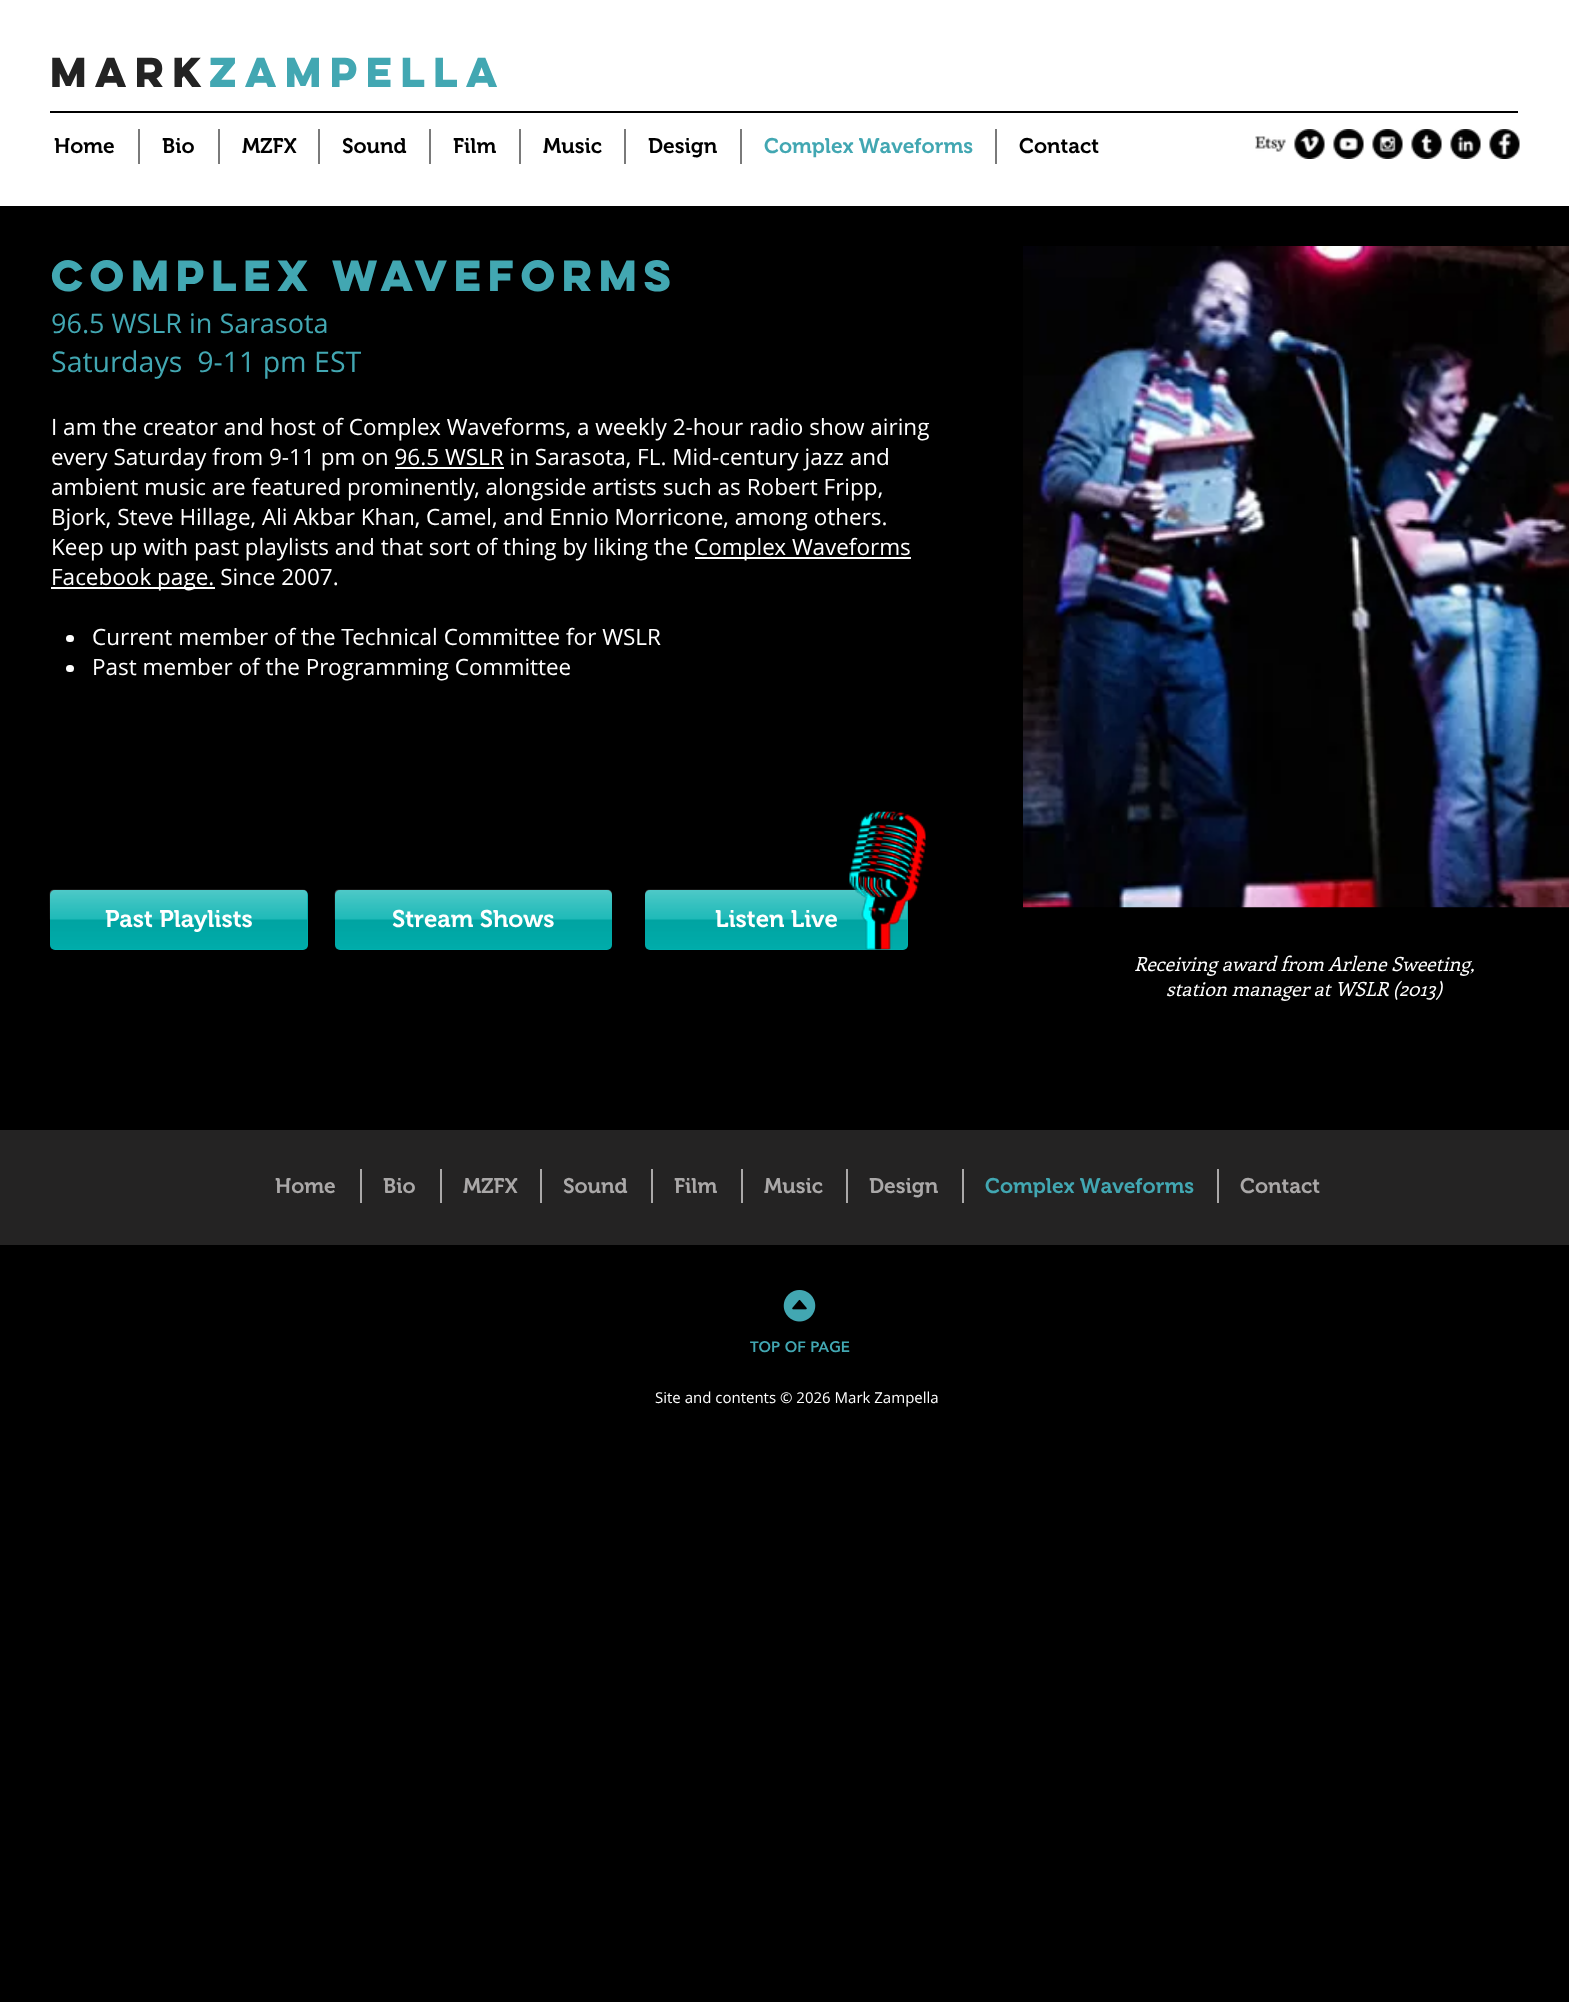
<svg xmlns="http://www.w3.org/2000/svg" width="1569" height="2002">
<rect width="100%" height="100%" fill="#000"/>
<rect width="1569" height="206" fill="#fff"/>
<text x="50" y="87" style="font-family:'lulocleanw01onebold';font-size:37.5px;font-weight:bold;fill:#232323">MARK</text>
<text x="209" y="87" style="font-family:'lulocleanw01onebold';font-size:37.5px;font-weight:bold;fill:#42a7b2">ZAMPELLA</text>
<rect x="50" y="111" width="1468" height="2" fill="#000"/>
<text x="54" y="153" style="font-family:'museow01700';font-size:21px;font-weight:600;fill:#000">Home</text>
<rect x="138" y="129" width="2" height="35" fill="#7a7a7a"/>
<text x="162" y="153" style="font-family:'museow01700';font-size:21px;font-weight:600;fill:#000">Bio</text>
<rect x="218" y="129" width="2" height="35" fill="#7a7a7a"/>
<text x="242" y="153" style="font-family:'museow01700';font-size:21px;font-weight:600;fill:#000">MZFX</text>
<rect x="318" y="129" width="2" height="35" fill="#7a7a7a"/>
<text x="342" y="153" style="font-family:'museow01700';font-size:21px;font-weight:600;fill:#000">Sound</text>
<rect x="429" y="129" width="2" height="35" fill="#7a7a7a"/>
<text x="453" y="153" style="font-family:'museow01700';font-size:21px;font-weight:600;fill:#000">Film</text>
<rect x="519" y="129" width="2" height="35" fill="#7a7a7a"/>
<text x="543" y="153" style="font-family:'museow01700';font-size:21px;font-weight:600;fill:#000">Music</text>
<rect x="624" y="129" width="2" height="35" fill="#7a7a7a"/>
<text x="648" y="153" style="font-family:'museow01700';font-size:21px;font-weight:600;fill:#000">Design</text>
<rect x="740" y="129" width="2" height="35" fill="#7a7a7a"/>
<text x="764" y="153" style="font-family:'museow01700';font-size:21px;font-weight:600;fill:#42a7b2">Complex Waveforms</text>
<rect x="995" y="129" width="2" height="35" fill="#7a7a7a"/>
<text x="1019" y="153" style="font-family:'museow01700';font-size:21px;font-weight:600;fill:#000">Contact</text>
<image x="1255" y="136" width="31" height="16" href="media/1.png"/>
<image x="1294" y="129" width="31" height="30" href="media/2.png"/>
<image x="1333" y="129" width="31" height="30" href="media/3.png"/>
<image x="1372" y="129" width="31" height="30" href="media/4.png"/>
<image x="1411" y="129" width="31" height="30" href="media/5.png"/>
<image x="1450" y="129" width="31" height="30" href="media/6.png"/>
<image x="1489" y="129" width="31" height="30" href="media/7.png"/>
<text x="51" y="291" style="font-family:'lulocleanw01onebold';font-size:39px;font-weight:bold;letter-spacing:-2px;fill:#42a7b2">Complex Waveforms</text>
<text x="51" y="333" style="font-family:Open Sans;font-size:27px;fill:#42a7b2">96.5 WSLR in Sarasota</text>
<text x="51" y="372" style="font-family:Open Sans;font-size:28.5px;fill:#42a7b2" xml:space="preserve">Saturdays  9-11 pm EST</text>
<text x="51" y="435" style="font-family:Open Sans;font-size:22.5px;fill:#fff">I am the creator and host of Complex Waveforms, a weekly 2-hour radio show airing</text>
<text x="51" y="465" style="font-family:Open Sans;font-size:22.5px;fill:#fff">every Saturday from 9-11 pm on 96.5 WSLR in Sarasota, FL. Mid-century jazz and</text>
<rect x="395" y="467" width="109" height="2" fill="#fff"/>
<text x="51" y="495" style="font-family:Open Sans;font-size:22.5px;fill:#fff">ambient music are featured prominently, alongside artists such as Robert Fripp,</text>
<text x="51" y="525" style="font-family:Open Sans;font-size:22.5px;fill:#fff">Bjork, Steve Hillage, Ali Akbar Khan, Camel, and Ennio Morricone, among others.</text>
<text x="51" y="555" style="font-family:Open Sans;font-size:22.5px;fill:#fff">Keep up with past playlists and that sort of thing by liking the</text>
<rect x="695" y="557" width="216" height="2" fill="#fff"/>
<text x="694" y="555" style="font-family:Open Sans;font-size:22.5px;fill:#fff">Complex Waveforms</text>
<rect x="51" y="587" width="164" height="2" fill="#fff"/>
<text x="51" y="585" style="font-family:Open Sans;font-size:22.5px;fill:#fff">Facebook page. Since 2007.</text>
<rect x="66" y="635" width="8" height="7" rx="3.5" fill="#fff"/>
<text x="92" y="645" style="font-family:Open Sans;font-size:22.5px;fill:#fff">Current member of the Technical Committee for WSLR</text>
<rect x="66" y="665" width="8" height="7" rx="3.5" fill="#fff"/>
<text x="92" y="675" style="font-family:Open Sans;font-size:22.5px;fill:#fff">Past member of the Programming Committee</text>
<image x="1023" y="246" width="546" height="662" href="media/8.png"/>
<rect x="50" y="890" width="258" height="60" rx="5" fill="#01b1af"/>
<image x="49" y="889" width="259" height="60" href="media/9.png"/>
<text x="105" y="927" style="font-family:'museow01700';font-size:24px;font-weight:600;fill:#fff">Past Playlists</text>
<rect x="335" y="890" width="277" height="60" rx="5" fill="#01b1af"/>
<image x="334" y="889" width="278" height="60" href="media/10.png"/>
<text x="392" y="927" style="font-family:'museow01700';font-size:24px;font-weight:600;fill:#fff">Stream Shows</text>
<rect x="645" y="890" width="263" height="60" rx="5" fill="#01b1af"/>
<image x="645" y="889" width="263" height="60" href="media/11.png"/>
<text x="715" y="927" style="font-family:'museow01700';font-size:24px;font-weight:600;fill:#fff">Listen Live</text>
<image x="849" y="811" width="77" height="139" href="media/12.png"/>
<text x="1134" y="971" style="font-family:Enriqueta;font-size:19.5px;font-style:italic;fill:#fff">Receiving award from Arlene Sweeting,</text>
<text x="1166" y="996" style="font-family:Enriqueta;font-size:19.5px;font-style:italic;fill:#fff">station manager at WSLR (2013)</text>
<rect y="1130" width="1569" height="115" fill="#242323"/>
<text x="275" y="1193" style="font-family:'museow01700';font-size:21px;font-weight:600;fill:#aaa8a8">Home</text>
<rect x="360" y="1169" width="2" height="34" fill="#aaa8a8"/>
<text x="383" y="1193" style="font-family:'museow01700';font-size:21px;font-weight:600;fill:#aaa8a8">Bio</text>
<rect x="440" y="1169" width="2" height="34" fill="#aaa8a8"/>
<text x="463" y="1193" style="font-family:'museow01700';font-size:21px;font-weight:600;fill:#aaa8a8">MZFX</text>
<rect x="540" y="1169" width="2" height="34" fill="#aaa8a8"/>
<text x="563" y="1193" style="font-family:'museow01700';font-size:21px;font-weight:600;fill:#aaa8a8">Sound</text>
<rect x="651" y="1169" width="2" height="34" fill="#aaa8a8"/>
<text x="674" y="1193" style="font-family:'museow01700';font-size:21px;font-weight:600;fill:#aaa8a8">Film</text>
<rect x="741" y="1169" width="2" height="34" fill="#aaa8a8"/>
<text x="764" y="1193" style="font-family:'museow01700';font-size:21px;font-weight:600;fill:#aaa8a8">Music</text>
<rect x="846" y="1169" width="2" height="34" fill="#aaa8a8"/>
<text x="869" y="1193" style="font-family:'museow01700';font-size:21px;font-weight:600;fill:#aaa8a8">Design</text>
<rect x="962" y="1169" width="2" height="34" fill="#aaa8a8"/>
<text x="985" y="1193" style="font-family:'museow01700';font-size:21px;font-weight:600;fill:#42a7b2">Complex Waveforms</text>
<rect x="1217" y="1169" width="2" height="34" fill="#aaa8a8"/>
<text x="1240" y="1193" style="font-family:'museow01700';font-size:21px;font-weight:600;fill:#aaa8a8">Contact</text>
<image x="783" y="1290" width="33" height="32" href="media/13.png"/>
<text x="750" y="1352" style="font-family:'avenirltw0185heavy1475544';font-size:15px;font-weight:900;fill:#42a7b2">TOP OF PAGE</text>
<text x="655" y="1403" style="font-family:Open Sans;font-size:15px;fill:#fff">Site and contents © 2026 Mark Zampella</text>
</svg>
